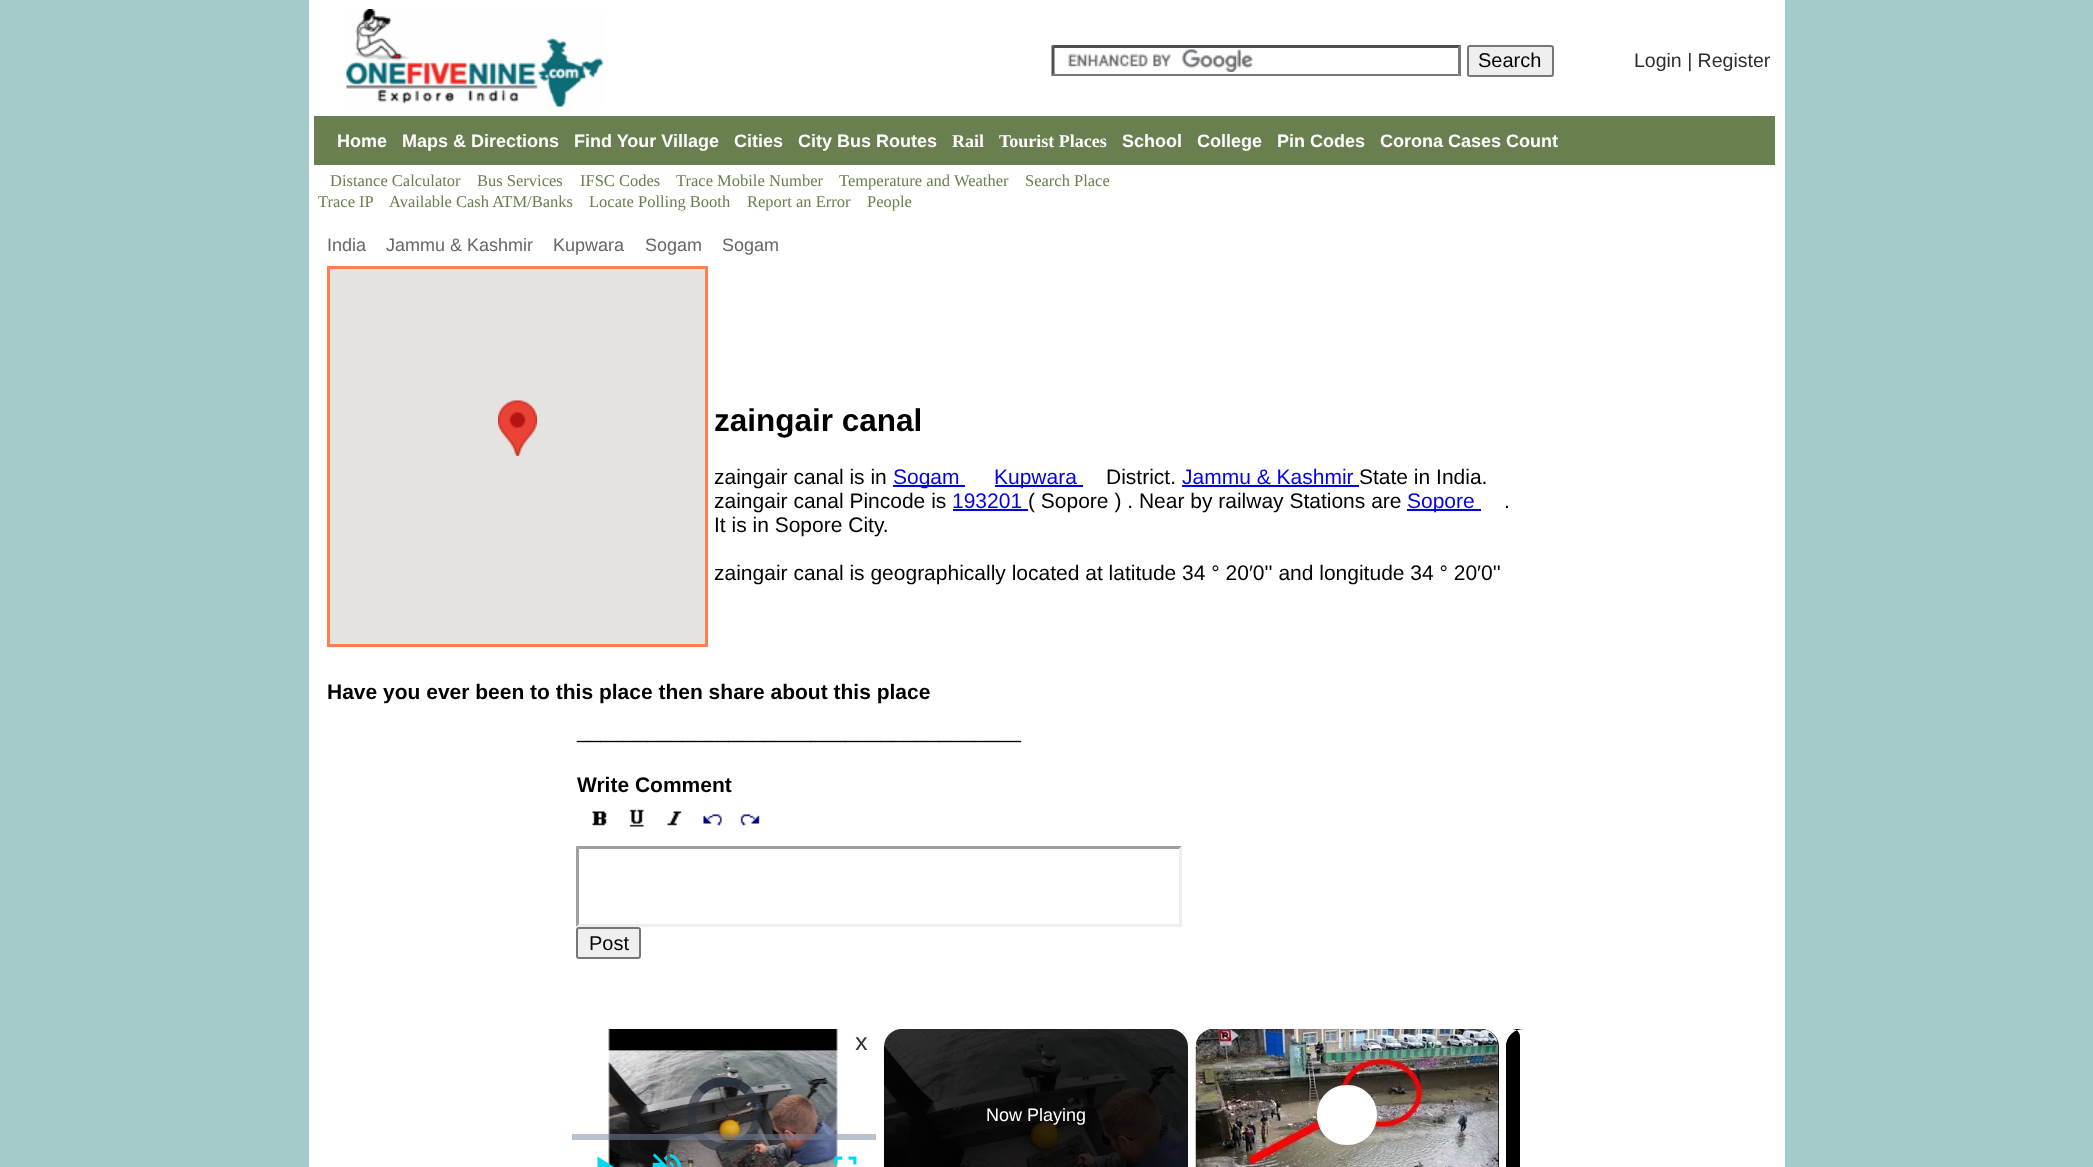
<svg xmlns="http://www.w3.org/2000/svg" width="2093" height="1167">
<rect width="100%" height="100%" fill="#a4cac9"/>
<rect x="309" width="1476" height="1167" fill="#fff"/>
<image x="346" y="9" width="258" height="98" href="media/1.png"/>
<image x="1068" y="49" width="185" height="23" href="media/2.png"/>
<path d="M1052 45h409l-3 3h-404z" fill="#4f4f4f"/>
<path d="M1461 45v31.5l-3-3v-25.5z" fill="#767676"/>
<path d="M1461 76h-409l2-2h404z" fill="#767676"/>
<path d="M1051.5 76.5v-31.5l3 3v25.5z" fill="#4f4f4f"/>
<rect x="1468" y="46" width="85" height="30" rx="2" fill="#efefef" stroke="#767676" stroke-width="2"/>
<text x="1478" y="67" style="font-family:Liberation Sans;font-size:20px;fill:#000">Search</text>
<text x="1634" y="67" style="font-family:Liberation Sans;font-size:19.5px;fill:#2d2d2d">Login | Register</text>
<rect x="314" y="116" width="1461" height="49" fill="#697f4f"/>
<text x="337" y="147" style="font-family:Liberation Sans;font-size:18px;font-weight:bold;fill:#fff">Home</text>
<text x="402" y="147" style="font-family:Liberation Sans;font-size:18px;font-weight:bold;fill:#fff">Maps &amp; Directions</text>
<text x="574" y="147" style="font-family:Liberation Sans;font-size:18px;font-weight:bold;fill:#fff">Find Your Village</text>
<text x="734" y="147" style="font-family:Liberation Sans;font-size:18px;font-weight:bold;fill:#fff">Cities</text>
<text x="798" y="147" style="font-family:Liberation Sans;font-size:18px;font-weight:bold;fill:#fff">City Bus Routes</text>
<text x="952" y="147" style="font-family:Liberation Serif;font-size:18px;font-weight:bold;fill:#fff">Rail</text>
<text x="999" y="147" style="font-family:Liberation Serif;font-size:18px;font-weight:bold;fill:#fff">Tourist Places</text>
<text x="1122" y="147" style="font-family:Liberation Sans;font-size:18px;font-weight:bold;fill:#fff">School</text>
<text x="1197" y="147" style="font-family:Liberation Sans;font-size:18px;font-weight:bold;fill:#fff">College</text>
<text x="1277" y="147" style="font-family:Liberation Sans;font-size:18px;font-weight:bold;fill:#fff">Pin Codes</text>
<text x="1380" y="147" style="font-family:Liberation Sans;font-size:18px;font-weight:bold;fill:#fff">Corona Cases Count</text>
<text x="330" y="186" style="font-family:Liberation Serif;font-size:16.5px;fill:#697f4f">Distance Calculator</text>
<text x="477" y="186" style="font-family:Liberation Serif;font-size:16.5px;fill:#697f4f">Bus Services</text>
<text x="580" y="186" style="font-family:Liberation Serif;font-size:16.5px;fill:#697f4f">IFSC Codes</text>
<text x="676" y="186" style="font-family:Liberation Serif;font-size:16.5px;fill:#697f4f">Trace Mobile Number</text>
<text x="839" y="186" style="font-family:Liberation Serif;font-size:16.5px;fill:#697f4f">Temperature and Weather</text>
<text x="1025" y="186" style="font-family:Liberation Serif;font-size:16.5px;fill:#697f4f">Search Place</text>
<text x="318" y="207" style="font-family:Liberation Serif;font-size:16.5px;fill:#697f4f">Trace IP</text>
<text x="389" y="207" style="font-family:Liberation Serif;font-size:16.5px;fill:#697f4f">Available Cash ATM/Banks</text>
<text x="589" y="207" style="font-family:Liberation Serif;font-size:16.5px;fill:#697f4f">Locate Polling Booth</text>
<text x="747" y="207" style="font-family:Liberation Serif;font-size:16.5px;fill:#697f4f">Report an Error</text>
<text x="867" y="207" style="font-family:Liberation Serif;font-size:16.5px;fill:#697f4f">People</text>
<text x="327" y="251" style="font-family:Liberation Sans;font-size:18px;fill:#666">India</text>
<text x="386" y="251" style="font-family:Liberation Sans;font-size:18px;fill:#666">Jammu &amp; Kashmir</text>
<text x="553" y="251" style="font-family:Liberation Sans;font-size:18px;fill:#666">Kupwara</text>
<text x="645" y="251" style="font-family:Liberation Sans;font-size:18px;fill:#666">Sogam</text>
<text x="722" y="251" style="font-family:Liberation Sans;font-size:18px;fill:#666">Sogam</text>
<rect x="328.5" y="267.5" width="378" height="378" fill="none" stroke="#ff7f50" stroke-width="3"/>
<rect x="330" y="269" width="375" height="375" fill="#e5e3df"/>
<image x="498" y="400" width="39" height="56" href="media/3.png"/>
<text x="714" y="431" style="font-family:Liberation Sans;font-size:31.5px;font-weight:bold;fill:#000">zaingair canal</text>
<text x="714" y="484" style="font-family:Liberation Sans;font-size:21px;fill:#000">zaingair canal is in</text>
<rect x="893" y="485" width="72" height="2" fill="#00e"/>
<text x="893" y="484" style="font-family:Liberation Sans;font-size:21px;fill:#00e">Sogam</text>
<rect x="995" y="485" width="88" height="2" fill="#00e"/>
<text x="994" y="484" style="font-family:Liberation Sans;font-size:21px;fill:#00e">Kupwara</text>
<text x="1106" y="484" style="font-family:Liberation Sans;font-size:21px;fill:#000">District.</text>
<text x="1182" y="484" style="font-family:Liberation Sans;font-size:21px;fill:#00e">Jammu &amp; Kashmir</text>
<rect x="1182" y="485" width="177" height="2" fill="#00e"/>
<text x="1359" y="484" style="font-family:Liberation Sans;font-size:21px;fill:#000">State in India.</text>
<text x="714" y="508" style="font-family:Liberation Sans;font-size:21px;fill:#000">zaingair canal Pincode is</text>
<text x="952" y="508" style="font-family:Liberation Sans;font-size:21px;fill:#00e">193201</text>
<rect x="953" y="509" width="75" height="2" fill="#00e"/>
<text x="1028" y="508" style="font-family:Liberation Sans;font-size:21px;fill:#000">( Sopore ) . Near by railway Stations are</text>
<rect x="1407" y="509" width="74" height="2" fill="#00e"/>
<text x="1407" y="508" style="font-family:Liberation Sans;font-size:21px;fill:#00e">Sopore</text>
<text x="1504" y="508" style="font-family:Liberation Sans;font-size:21px;fill:#000">.</text>
<text x="714" y="532" style="font-family:Liberation Sans;font-size:21px;fill:#000">It is in Sopore City.</text>
<text x="714" y="580" style="font-family:Liberation Sans;font-size:21px;fill:#000">zaingair canal is geographically located at latitude 34 ° 20′0'' and longitude 34 ° 20′0''</text>
<text x="327" y="699" style="font-family:Liberation Sans;font-size:21px;font-weight:bold;fill:#000">Have you ever been to this place then share about this place</text>
<text x="577" y="738" style="font-family:Liberation Sans;font-size:21px;fill:#000">______________________________________</text>
<text x="577" y="792" style="font-family:Liberation Sans;font-size:21px;font-weight:bold;fill:#000">Write Comment</text>
<image x="592" y="811" width="15" height="15" href="media/4.png"/>
<image x="629" y="809" width="15" height="18" href="media/5.png"/>
<image x="667" y="811" width="15" height="15" href="media/6.png"/>
<image x="703" y="814" width="19" height="12" href="media/7.png"/>
<image x="740" y="814" width="20" height="12" href="media/8.png"/>
<path d="M576 846h606l-3 3h-600z" fill="#9f9f9f"/>
<path d="M1182 846v81l-3-3v-75z" fill="#eee"/>
<path d="M1182 927h-606l3-3h600z" fill="#eee"/>
<path d="M576 927v-81l3 3v75z" fill="#9f9f9f"/>
<rect x="577" y="928" width="63" height="30" rx="2" fill="#efefef" stroke="#767676" stroke-width="2"/>
<text x="589" y="950" style="font-family:Liberation Sans;font-size:20px;fill:#000">Post</text>
<image x="608" y="1029" width="230" height="138" href="media/9.png"/>
<circle cx="724.5" cy="1114.5" r="33" fill="none" stroke="#2b333f96" stroke-width="9"/>
<path d="M701 1091c13-12.5 34-12.5 47 0" fill="none" stroke="#2b333f96" stroke-width="9"/>
<path d="M701 1091c13-12.5 34-12.5 47 0" fill="none" stroke="#2b333f96" stroke-width="9"/>
<rect x="572" y="1134" width="304" height="6" fill="#73859f80"/>
<path d="M597.5 1156.5v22l17.5-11z" fill="#03d8f3"/>
<image x="652" y="1153" width="29" height="14" href="media/10.png"/>
<image x="834" y="1156" width="23" height="9" href="media/11.png"/>
<text x="855" y="1050" style="font-family:Noto Sans;font-size:24px;fill:#333">x</text>
<rect x="884" y="1029" width="304" height="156" rx="18" fill="#000"/>
<image x="883" y="1029" width="305" height="138" href="media/12.png"/>
<text x="986" y="1121" style="font-family:Liberation Sans;font-size:18px;fill:#fff">Now Playing</text>
<rect x="1196" y="1029" width="303" height="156" rx="18" fill="#000"/>
<image x="1195" y="1029" width="304" height="138" href="media/13.png"/>
<path d="M1347 1085c-17 0-30 13-30 30c0 17 13 30 30 30c17 0 30-13 30-30c0-17-13-30-30-30z" fill="#fff"/>
<path d="M1524 1029h-12c4.5 0 8 3.5 8 8v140c0 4.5-3.5 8-8 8h12c-10 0-18-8-18-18v-120c0-10 8-18 18-18z" fill="#000"/>
<image x="1506" y="1030" width="14" height="17" href="media/14.png"/>
</svg>
